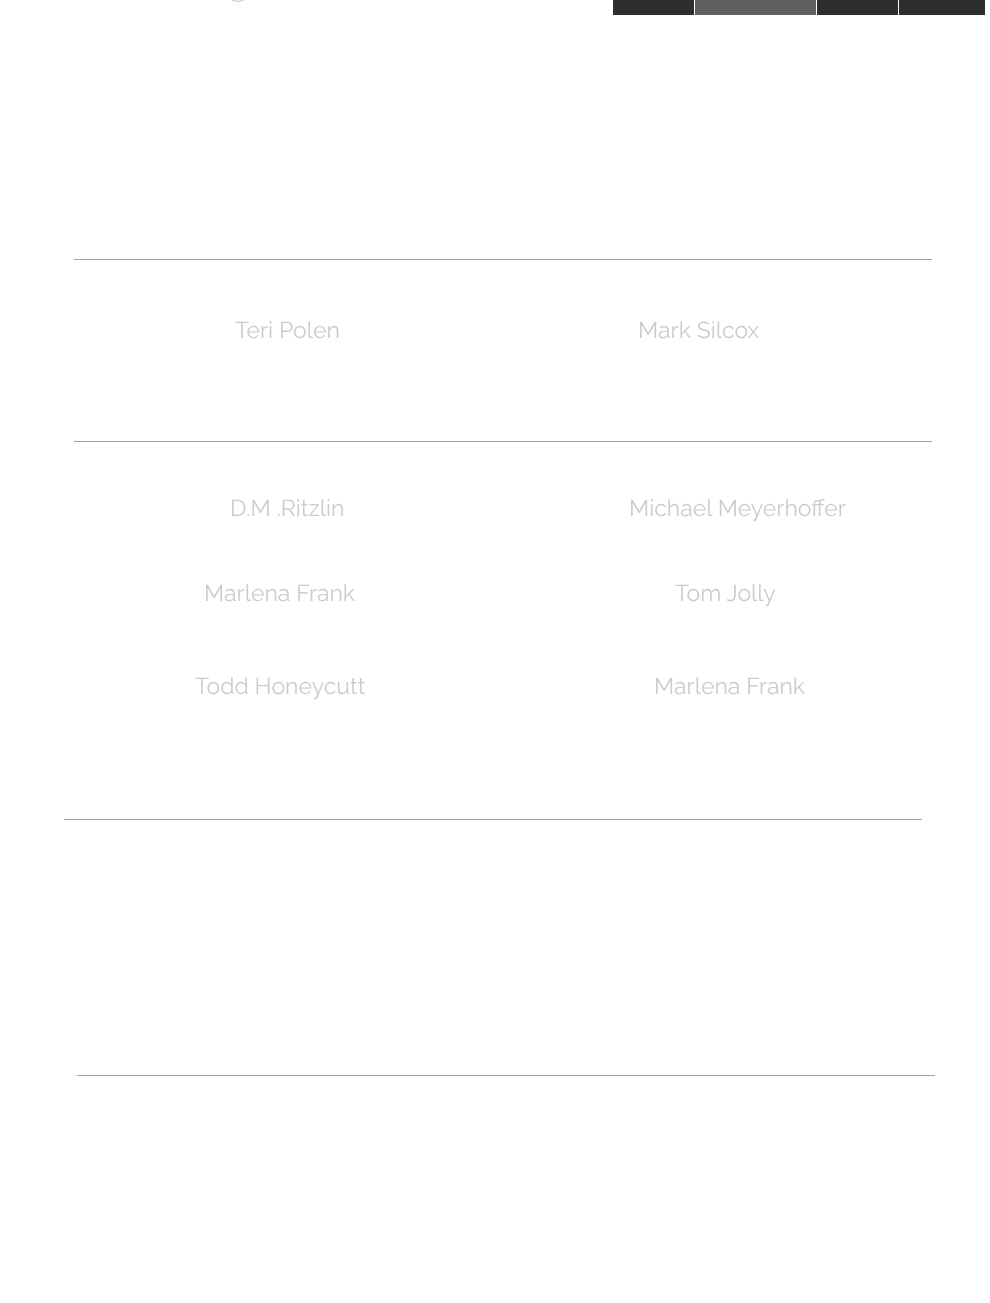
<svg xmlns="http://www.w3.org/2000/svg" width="990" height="1303">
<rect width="100%" height="100%" fill="#fff"/>
<image x="231" y="0" width="13" height="2" href="media/1.png"/>
<rect x="613" width="372" height="15" fill="#2f2e2e"/>
<rect x="695" width="121" height="15" fill="#605e5e"/>
<rect x="694" width="1" height="15" fill="#fff"/>
<rect x="816" width="1" height="15" fill="#fff"/>
<rect x="898" width="1" height="15" fill="#fff"/>
<rect x="74" y="259" width="858" height="1" fill="#a0a09f"/>
<text x="235" y="338" style="font-family:Raleway;font-size:23px;fill:#ccc">Teri Polen</text>
<text x="638" y="338" style="font-family:Raleway;font-size:23px;fill:#ccc">Mark Silcox</text>
<rect x="74" y="441" width="858" height="1" fill="#a0a09f"/>
<text x="230" y="516" style="font-family:Raleway;font-size:23px;fill:#ccc">D.M .Ritzlin</text>
<text x="629" y="516" style="font-family:Raleway;font-size:23px;fill:#ccc">Michael Meyerhoffer</text>
<text x="204" y="601" style="font-family:Raleway;font-size:23px;fill:#ccc">Marlena Frank</text>
<text x="675" y="601" style="font-family:Raleway;font-size:23px;fill:#ccc">Tom Jolly</text>
<text x="195" y="694" style="font-family:Raleway;font-size:23px;fill:#ccc">Todd Honeycutt</text>
<text x="654" y="694" style="font-family:Raleway;font-size:23px;fill:#ccc">Marlena Frank</text>
<rect x="64" y="819" width="858" height="1" fill="#a0a09f"/>
<rect x="77" y="1075" width="858" height="1" fill="#a0a09f"/>
</svg>
